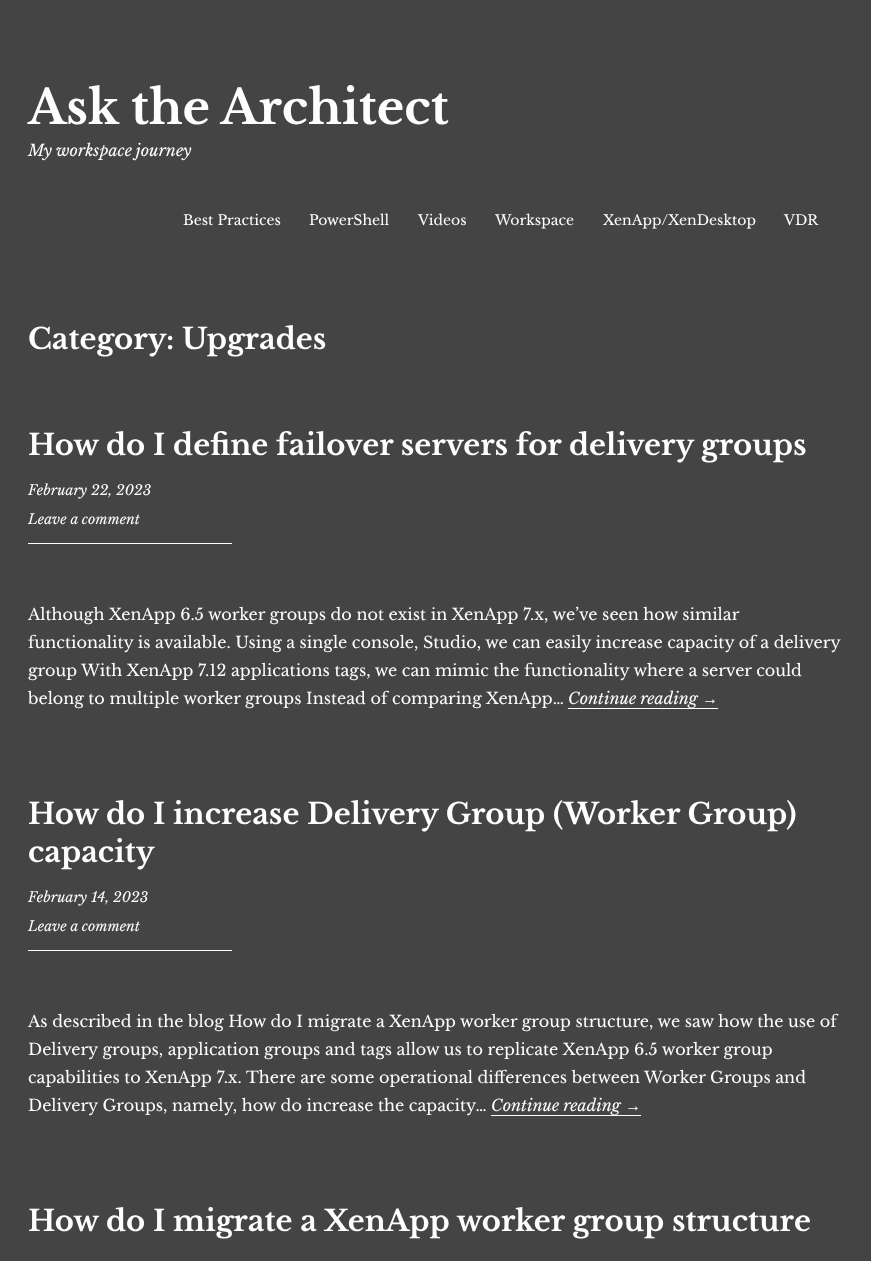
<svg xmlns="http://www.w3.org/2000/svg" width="871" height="1261">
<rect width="100%" height="100%" fill="#444"/>
<text x="28" y="124" style="font-family:Libre Baskerville;font-size:47px;font-weight:bold;fill:#fefefe">Ask the Architect</text>
<text x="28" y="156" style="font-family:Libre Baskerville;font-size:16px;font-style:italic;fill:#fefefe">My workspace journey</text>
<text x="183" y="225" style="font-family:Libre Baskerville;font-size:14px;fill:#fefefe">Best Practices</text>
<text x="309" y="225" style="font-family:Libre Baskerville;font-size:14px;fill:#fefefe">PowerShell</text>
<text x="418" y="225" style="font-family:Libre Baskerville;font-size:14px;fill:#fefefe">Videos</text>
<text x="495" y="225" style="font-family:Libre Baskerville;font-size:14px;fill:#fefefe">Workspace</text>
<text x="603" y="225" style="font-family:Libre Baskerville;font-size:14px;fill:#fefefe">XenApp/XenDesktop</text>
<text x="784" y="225" style="font-family:Libre Baskerville;font-size:14px;fill:#fefefe">VDR</text>
<text x="28" y="349" style="font-family:Libre Baskerville;font-size:29px;font-weight:bold;fill:#fefefe">Category: Upgrades</text>
<text x="28" y="455" style="font-family:Libre Baskerville;font-size:29px;font-weight:bold;fill:#fefefe">How do I define failover servers for delivery groups</text>
<text x="28" y="495" style="font-family:Libre Baskerville;font-size:14px;font-style:italic;fill:#fefefe">February 22, 2023</text>
<text x="28" y="524" style="font-family:Libre Baskerville;font-size:14px;font-style:italic;fill:#fefefe">Leave a comment</text>
<rect x="28" y="543" width="204" height="1" fill="#fefefe"/>
<text x="28" y="620" style="font-family:Libre Baskerville;font-size:16px;fill:#fefefe">Although XenApp 6.5 worker groups do not exist in XenApp 7.x, we’ve seen how similar</text>
<text x="28" y="648" style="font-family:Libre Baskerville;font-size:16px;fill:#fefefe">functionality is available. Using a single console, Studio, we can easily increase capacity of a delivery</text>
<text x="28" y="676" style="font-family:Libre Baskerville;font-size:16px;fill:#fefefe">group With XenApp 7.12 applications tags, we can mimic the functionality where a server could</text>
<text x="28" y="704" style="font-family:Libre Baskerville;font-size:16px;fill:#fefefe">belong to multiple worker groups Instead of comparing XenApp…</text>
<rect x="568" y="708" width="150" height="1" fill="#fefefe"/>
<text x="568" y="704" style="font-family:Libre Baskerville;font-size:16px;font-style:italic;fill:#fefefe">Continue reading</text>
<text x="702" y="704" style="font-family:Liberation Serif;font-size:16px;font-style:italic;fill:#fefefe">→</text>
<text x="28" y="824" style="font-family:Libre Baskerville;font-size:29px;font-weight:bold;fill:#fefefe">How do I increase Delivery Group (Worker Group)</text>
<text x="28" y="862" style="font-family:Libre Baskerville;font-size:29px;font-weight:bold;fill:#fefefe">capacity</text>
<text x="28" y="902" style="font-family:Libre Baskerville;font-size:14px;font-style:italic;fill:#fefefe">February 14, 2023</text>
<text x="28" y="931" style="font-family:Libre Baskerville;font-size:14px;font-style:italic;fill:#fefefe">Leave a comment</text>
<rect x="28" y="950" width="204" height="1" fill="#fefefe"/>
<text x="28" y="1027" style="font-family:Libre Baskerville;font-size:16px;fill:#fefefe">As described in the blog How do I migrate a XenApp worker group structure, we saw how the use of</text>
<text x="28" y="1055" style="font-family:Libre Baskerville;font-size:16px;fill:#fefefe">Delivery groups, application groups and tags allow us to replicate XenApp 6.5 worker group</text>
<text x="28" y="1083" style="font-family:Libre Baskerville;font-size:16px;fill:#fefefe">capabilities to XenApp 7.x. There are some operational differences between Worker Groups and</text>
<text x="28" y="1111" style="font-family:Libre Baskerville;font-size:16px;fill:#fefefe">Delivery Groups, namely, how do increase the capacity…</text>
<rect x="491" y="1115" width="150" height="1" fill="#fefefe"/>
<text x="491" y="1111" style="font-family:Libre Baskerville;font-size:16px;font-style:italic;fill:#fefefe">Continue reading</text>
<text x="625" y="1111" style="font-family:Liberation Serif;font-size:16px;font-style:italic;fill:#fefefe">→</text>
<text x="28" y="1231" style="font-family:Libre Baskerville;font-size:29px;font-weight:bold;fill:#fefefe">How do I migrate a XenApp worker group structure</text>
</svg>
